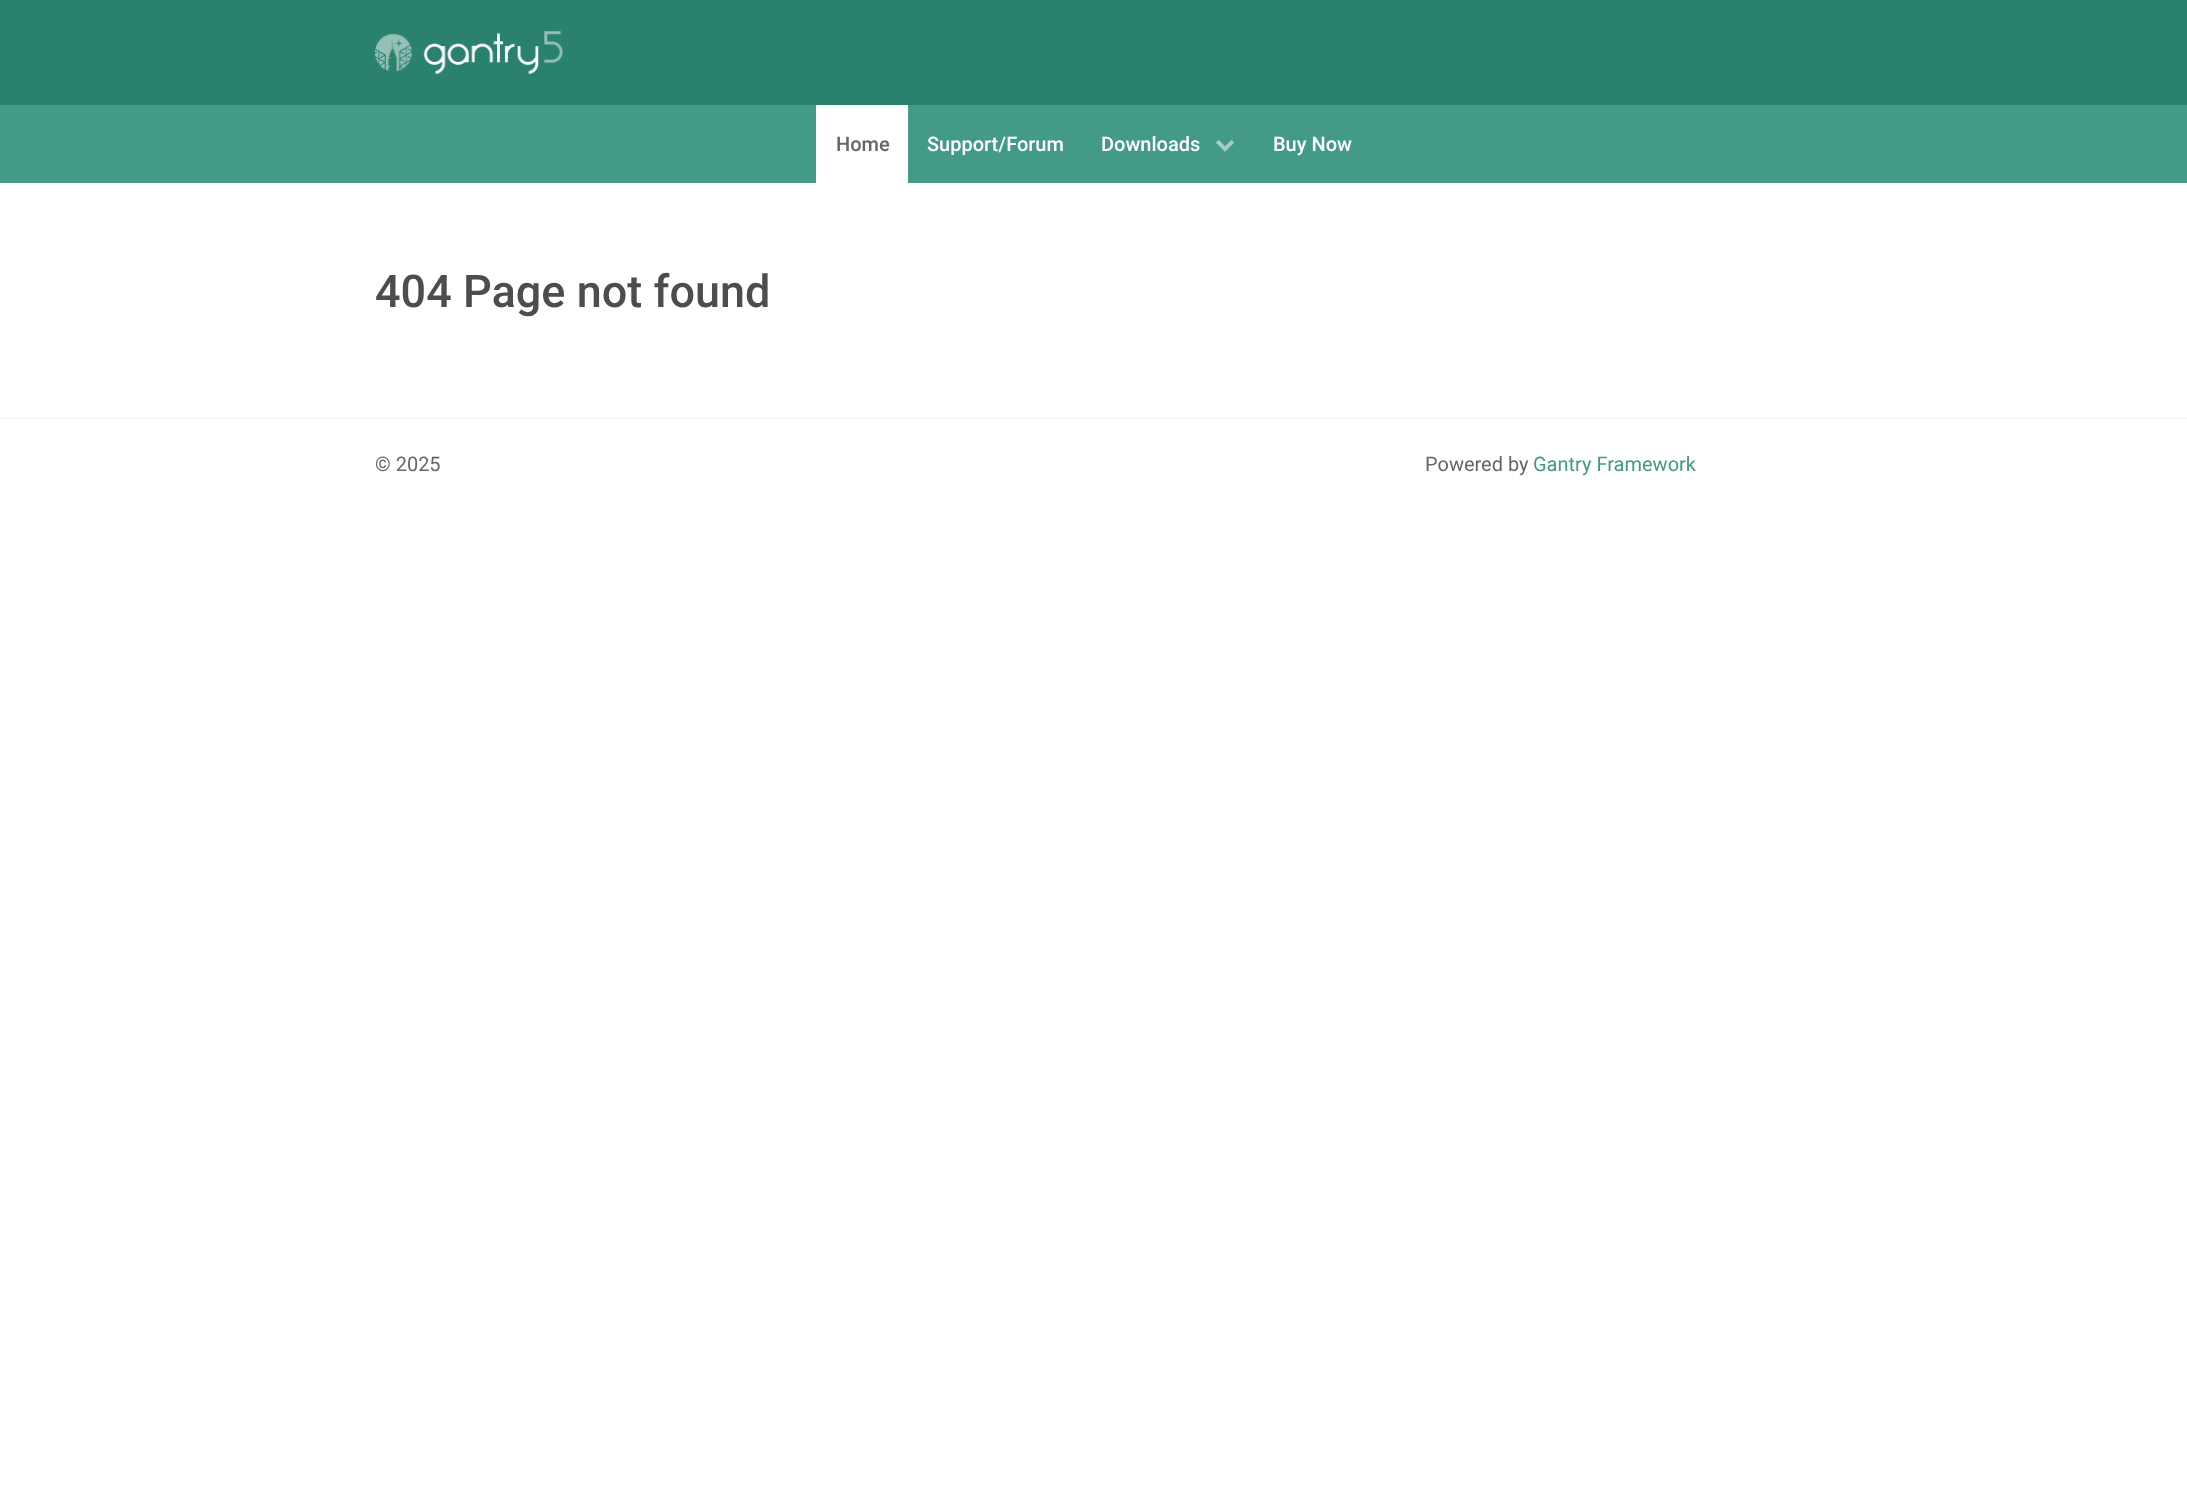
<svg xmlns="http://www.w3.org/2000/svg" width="2187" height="1500">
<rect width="100%" height="100%" fill="#fff"/>
<rect width="2187" height="105" fill="#2a816d"/>
<image x="375" y="31" width="188" height="43" href="media/1.png"/>
<rect y="105" width="2187" height="78" fill="#439a86"/>
<rect x="816" y="105" width="92" height="78" fill="#fff"/>
<text x="836" y="151" style="font-family:Roboto;font-size:20px;font-weight:500;fill:#666">Home</text>
<text x="927" y="151" style="font-family:Roboto;font-size:20px;font-weight:500;fill:#fff">Support/Forum</text>
<text x="1101" y="151" style="font-family:Roboto;font-size:20px;font-weight:500;fill:#fff">Downloads</text>
<image x="1216" y="140" width="18" height="12" href="media/2.png"/>
<text x="1273" y="151" style="font-family:Roboto;font-size:20px;font-weight:500;fill:#fff">Buy Now</text>
<text x="375" y="307" style="font-family:Roboto;font-size:45px;font-weight:500;fill:#4d4d4d">404 Page not found</text>
<rect y="418" width="2187" height="1" fill="#f2f2f2"/>
<text x="375" y="471" style="font-family:Roboto;font-size:20px;fill:#666">© 2025</text>
<text x="1425" y="471" style="font-family:Roboto;font-size:20px;fill:#666">Powered by</text>
<text x="1533" y="471" style="font-family:Roboto;font-size:20px;fill:#439a86">Gantry Framework</text>
</svg>
